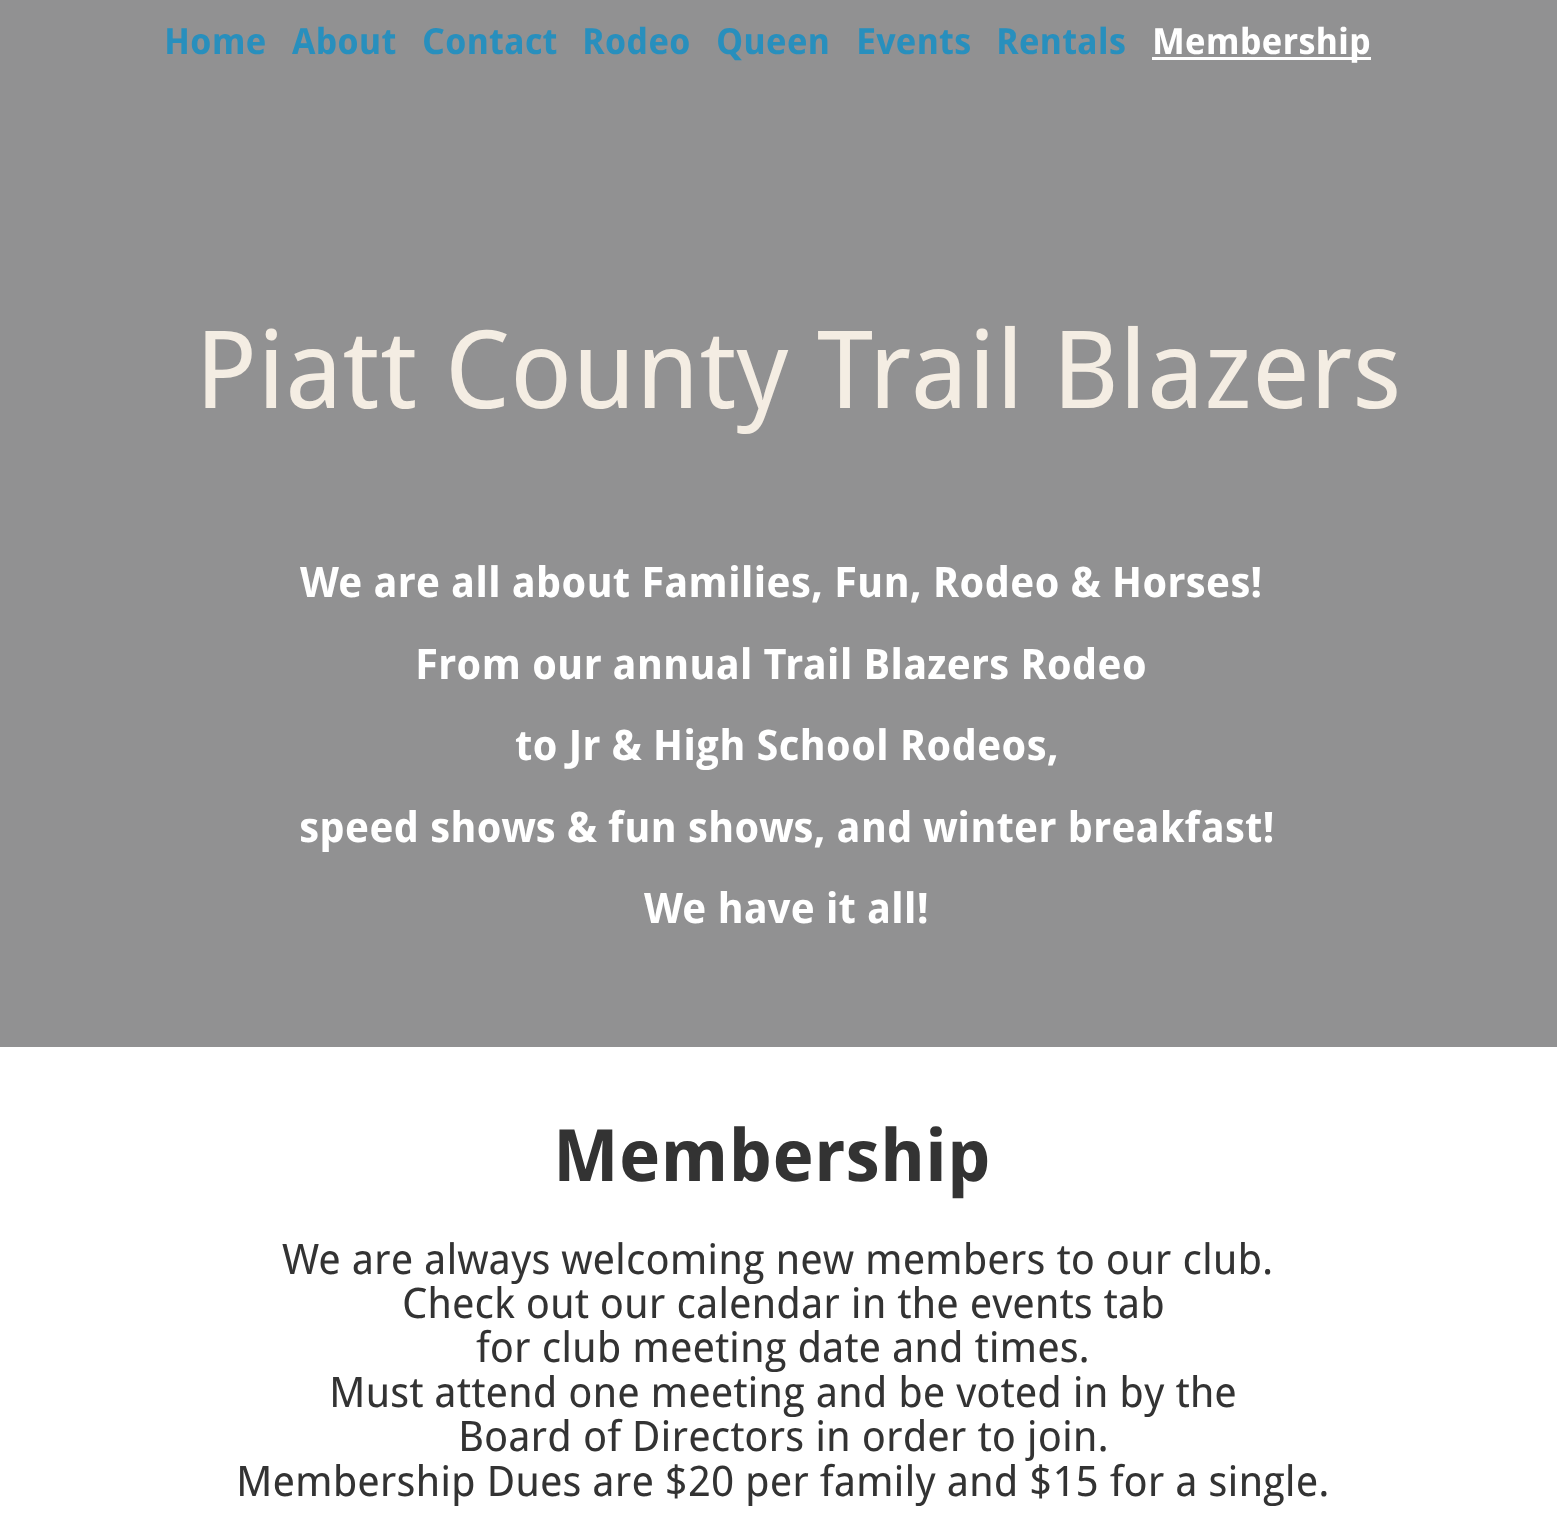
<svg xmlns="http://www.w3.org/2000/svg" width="1557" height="1513">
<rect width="100%" height="100%" fill="#919192"/>
<text x="164" y="54" style="font-family:Droid Sans;font-size:36px;font-weight:bold;fill:#288fbd">Home</text>
<text x="292" y="54" style="font-family:Droid Sans;font-size:36px;font-weight:bold;fill:#288fbd">About</text>
<text x="422" y="54" style="font-family:Droid Sans;font-size:36px;font-weight:bold;fill:#288fbd">Contact</text>
<text x="582" y="54" style="font-family:Droid Sans;font-size:36px;font-weight:bold;fill:#288fbd">Rodeo</text>
<text x="716" y="54" style="font-family:Droid Sans;font-size:36px;font-weight:bold;fill:#288fbd">Queen</text>
<text x="856" y="54" style="font-family:Droid Sans;font-size:36px;font-weight:bold;fill:#288fbd">Events</text>
<text x="996" y="54" style="font-family:Droid Sans;font-size:36px;font-weight:bold;fill:#288fbd">Rentals</text>
<rect x="1152" y="57" width="219" height="3" fill="#fff"/>
<text x="1152" y="54" style="font-family:Droid Sans;font-size:36px;font-weight:bold;fill:#fff">Membership</text>
<text x="195" y="408" style="font-family:Droid Sans;font-size:108px;fill:#f4ede3">Piatt County Trail Blazers</text>
<text x="300" y="597" style="font-family:Droid Sans;font-size:42px;font-weight:bold;fill:#fff">We are all about Families, Fun, Rodeo &amp; Horses!</text>
<text x="415" y="679" style="font-family:Droid Sans;font-size:42px;font-weight:bold;fill:#fff">From our annual Trail Blazers Rodeo</text>
<text x="515" y="760" style="font-family:Droid Sans;font-size:42px;font-weight:bold;fill:#fff">to Jr &amp; High School Rodeos,</text>
<text x="299" y="842" style="font-family:Droid Sans;font-size:42px;font-weight:bold;fill:#fff">speed shows &amp; fun shows, and winter breakfast!</text>
<text x="644" y="923" style="font-family:Droid Sans;font-size:42px;font-weight:bold;fill:#fff">We have it all!</text>
<rect y="1047" width="1557" height="466" fill="#fff"/>
<text x="553" y="1181" style="font-family:Droid Sans;font-size:72px;font-weight:bold;fill:#333">Membership</text>
<text x="282" y="1274" style="font-family:Droid Sans;font-size:42px;fill:#333">We are always welcoming new members to our club.</text>
<text x="402" y="1318" style="font-family:Droid Sans;font-size:42px;fill:#333">Check out our calendar in the events tab</text>
<text x="476" y="1362" style="font-family:Droid Sans;font-size:42px;fill:#333">for club meeting date and times.</text>
<text x="329" y="1407" style="font-family:Droid Sans;font-size:42px;fill:#333">Must attend one meeting and be voted in by the</text>
<text x="458" y="1451" style="font-family:Droid Sans;font-size:42px;fill:#333">Board of Directors in order to join.</text>
<text x="236" y="1496" style="font-family:Droid Sans;font-size:42px;fill:#333">Membership Dues are $20 per family and $15 for a single.</text>
</svg>
